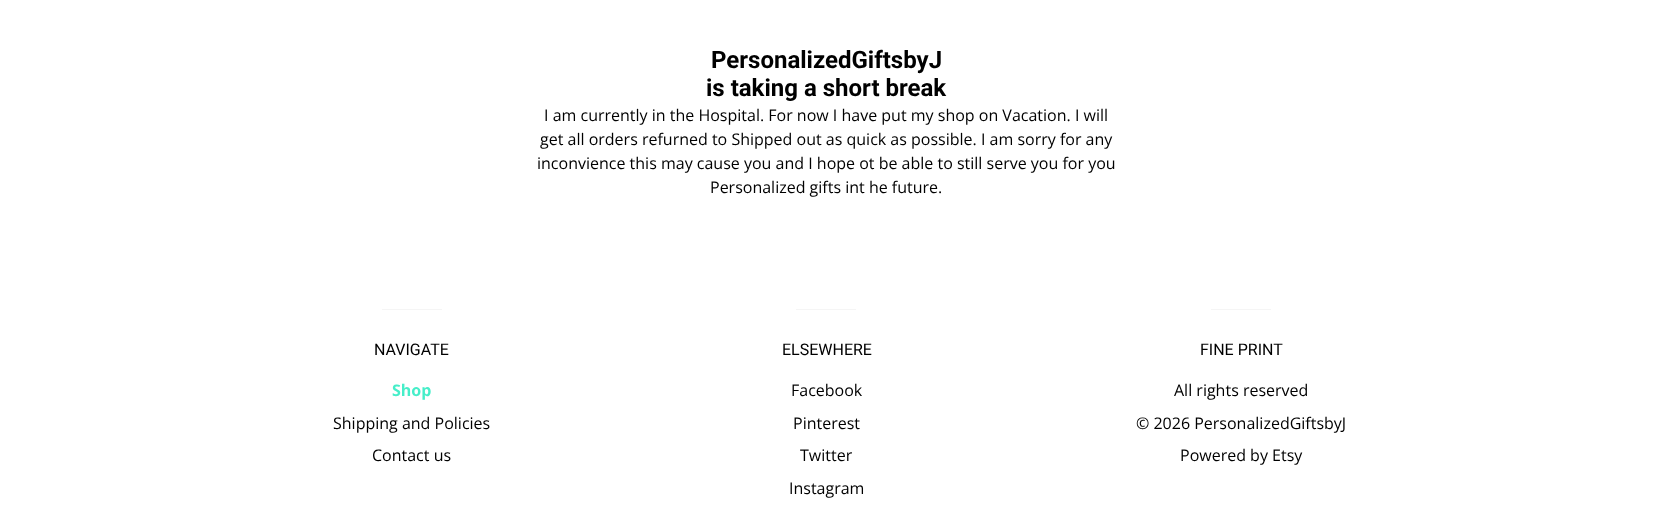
<svg xmlns="http://www.w3.org/2000/svg" width="1653" height="522">
<rect width="100%" height="100%" fill="#fff"/>
<text x="711" y="68" style="font-family:Roboto;font-size:24px;font-weight:bold;fill:#000">PersonalizedGiftsbyJ</text>
<text x="706" y="96" style="font-family:Roboto;font-size:24px;font-weight:bold;fill:#000">is taking a short break</text>
<text x="544" y="121" style="font-family:Open Sans;font-size:16px;fill:#000">I am currently in the Hospital. For now I have put my shop on Vacation. I will</text>
<text x="540" y="145" style="font-family:Open Sans;font-size:16px;fill:#000">get all orders refurned to Shipped out as quick as possible. I am sorry for any</text>
<text x="537" y="169" style="font-family:Open Sans;font-size:16px;fill:#000">inconvience this may cause you and I hope ot be able to still serve you for you</text>
<text x="710" y="193" style="font-family:Open Sans;font-size:16px;fill:#000">Personalized gifts int he future.</text>
<rect x="382" y="309" width="60" height="1" fill="#f5f5f5"/>
<text x="374" y="355" style="font-family:Roboto;font-size:16px;fill:#000">NAVIGATE</text>
<text x="392" y="396" style="font-family:Open Sans;font-size:16px;font-weight:bold;fill:#46eec9">Shop</text>
<text x="333" y="429" style="font-family:Open Sans;font-size:16px;fill:#000">Shipping and Policies</text>
<text x="372" y="461" style="font-family:Open Sans;font-size:16px;fill:#000">Contact us</text>
<rect x="796" y="309" width="60" height="1" fill="#f5f5f5"/>
<text x="782" y="355" style="font-family:Roboto;font-size:16px;fill:#000">ELSEWHERE</text>
<text x="791" y="396" style="font-family:Open Sans;font-size:16px;fill:#000">Facebook</text>
<text x="793" y="429" style="font-family:Open Sans;font-size:16px;fill:#000">Pinterest</text>
<text x="800" y="461" style="font-family:Open Sans;font-size:16px;fill:#000">Twitter</text>
<text x="789" y="494" style="font-family:Open Sans;font-size:16px;fill:#000">Instagram</text>
<rect x="1211" y="309" width="60" height="1" fill="#f5f5f5"/>
<text x="1200" y="355" style="font-family:Roboto;font-size:16px;fill:#000">FINE PRINT</text>
<text x="1174" y="396" style="font-family:Open Sans;font-size:16px;fill:#000">All rights reserved</text>
<text x="1136" y="429" style="font-family:Open Sans;font-size:16px;fill:#000">© 2026 PersonalizedGiftsbyJ</text>
<text x="1180" y="461" style="font-family:Open Sans;font-size:16px;fill:#000">Powered by Etsy</text>
</svg>
